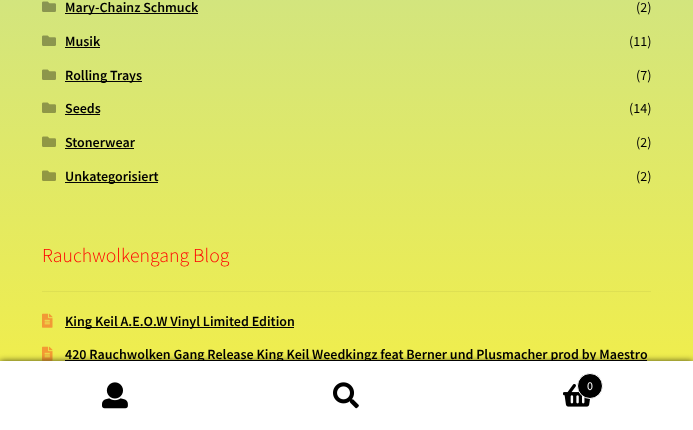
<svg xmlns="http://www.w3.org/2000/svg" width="693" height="430">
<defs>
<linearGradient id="g1" gradientUnits="userSpaceOnUse" x1="346" y1="-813" x2="347" y2="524"><stop offset="0" stop-color="#93d2e9"/><stop offset="1" stop-color="#fcf138"/></linearGradient>
</defs>
<rect width="100%" height="100%" fill="#fff"/>
<rect width="693" height="361" fill="url(#g1)"/>
<image x="42" y="1" width="14" height="11" href="media/1.png"/>
<rect x="65" y="13" width="133" height="1" fill="#050505"/>
<text x="65" y="12" style="font-family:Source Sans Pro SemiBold;font-size:14px;font-weight:600;fill:#000">Mary-Chainz Schmuck</text>
<text x="636" y="12" style="font-family:Source Sans Pro;font-size:14px;fill:#000">(2)</text>
<image x="42" y="35" width="14" height="11" href="media/2.png"/>
<text x="65" y="46" style="font-family:Source Sans Pro SemiBold;font-size:14px;font-weight:600;fill:#000">Musik</text>
<rect x="65" y="47" width="35" height="1" fill="#050505"/>
<text x="629" y="46" style="font-family:Source Sans Pro;font-size:14px;fill:#000">(11)</text>
<image x="42" y="69" width="14" height="11" href="media/3.png"/>
<rect x="65" y="81" width="77" height="1" fill="#050505"/>
<text x="65" y="80" style="font-family:Source Sans Pro SemiBold;font-size:14px;font-weight:600;fill:#000">Rolling Trays</text>
<text x="636" y="80" style="font-family:Source Sans Pro;font-size:14px;fill:#000">(7)</text>
<image x="42" y="102" width="14" height="11" href="media/4.png"/>
<text x="65" y="113" style="font-family:Source Sans Pro SemiBold;font-size:14px;font-weight:600;fill:#000">Seeds</text>
<rect x="65" y="114" width="35" height="1" fill="#050505"/>
<text x="629" y="113" style="font-family:Source Sans Pro;font-size:14px;fill:#000">(14)</text>
<image x="42" y="136" width="14" height="11" href="media/5.png"/>
<text x="65" y="147" style="font-family:Source Sans Pro SemiBold;font-size:14px;font-weight:600;fill:#000">Stonerwear</text>
<rect x="65" y="148" width="69" height="1" fill="#050505"/>
<text x="636" y="147" style="font-family:Source Sans Pro;font-size:14px;fill:#000">(2)</text>
<image x="42" y="170" width="14" height="11" href="media/6.png"/>
<rect x="65" y="182" width="93" height="1" fill="#050505"/>
<text x="65" y="181" style="font-family:Source Sans Pro SemiBold;font-size:14px;font-weight:600;fill:#000">Unkategorisiert</text>
<text x="636" y="181" style="font-family:Source Sans Pro;font-size:14px;fill:#000">(2)</text>
<rect x="42" y="291" width="609" height="1" fill="#dee053"/>
<text x="42" y="262" style="font-family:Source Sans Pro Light;font-size:19.75px;font-weight:300;fill:#f00">Rauchwolkengang Blog</text>
<image x="42" y="313" width="11" height="15" href="media/7.png"/>
<rect x="65" y="327" width="229" height="1" fill="#050505"/>
<text x="65" y="326" style="font-family:Source Sans Pro SemiBold;font-size:14px;font-weight:600;fill:#000">King Keil A.E.O.W Vinyl Limited Edition</text>
<image x="42" y="346" width="11" height="15" href="media/8.png"/>
<rect x="65" y="360" width="582" height="1" fill="#050505"/>
<text x="65" y="359" style="font-family:Source Sans Pro SemiBold;font-size:14px;font-weight:600;fill:#000">420 Rauchwolken Gang Release King Keil Weedkingz feat Berner und Plusmacher prod by Maestro</text>
<rect y="361" width="693" height="69" fill="#000000b3" filter="blur(3px)"/>
<rect y="361" width="693" height="1" fill="#fff"/>
<rect y="362" width="693" height="68" fill="#fff"/>
<image x="102" y="382" width="26" height="27" href="media/9.png"/>
<image x="333" y="382" width="26" height="27" href="media/10.png"/>
<image x="563" y="384" width="28" height="23" href="media/11.png"/>
<circle cx="590" cy="386" r="12.5" fill="#000" stroke="#fff"/>
<text x="587" y="390" style="font-family:Source Sans Pro;font-size:12px;fill:#fff">0</text>
</svg>
